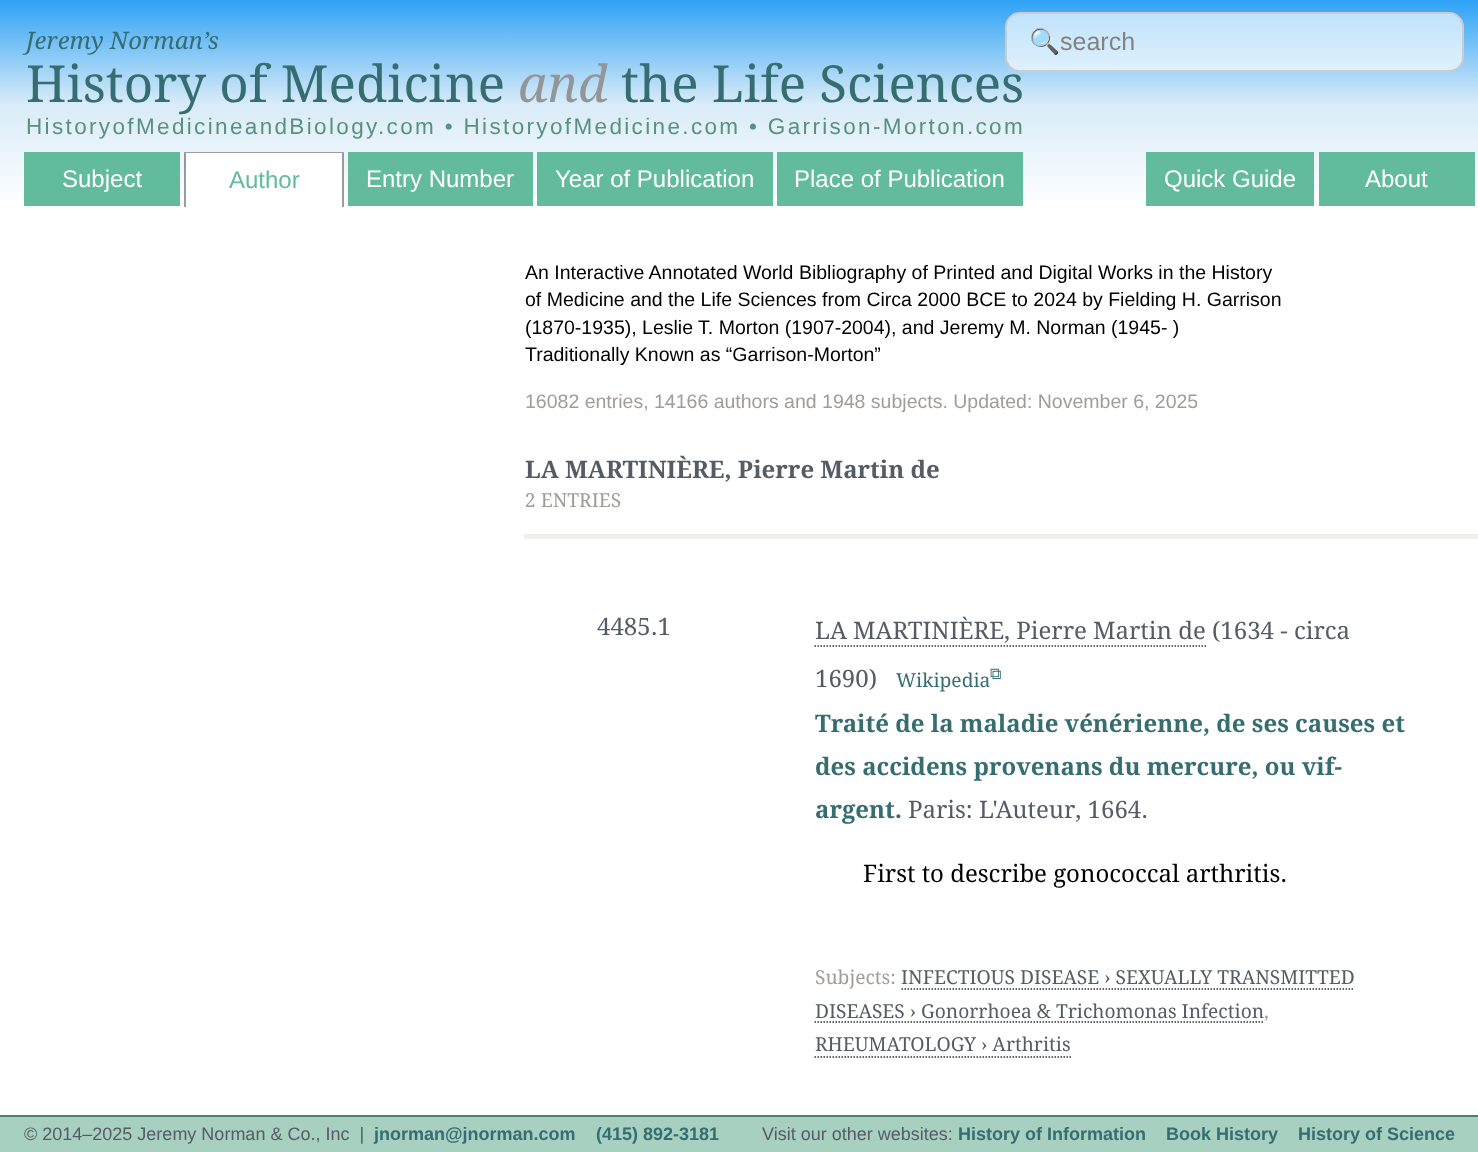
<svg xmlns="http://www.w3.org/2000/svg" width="1478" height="1152">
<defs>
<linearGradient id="g1" gradientUnits="userSpaceOnUse" x1="740" y1="0" x2="740" y2="207"><stop offset="0" stop-color="#2ea2f5"/><stop offset="0.5" stop-color="#d8ebf8"/><stop offset="1" stop-color="#fff"/></linearGradient>
</defs>
<rect width="100%" height="100%" fill="#fff"/>
<rect width="1478" height="200" fill="url(#g1)"/>
<text x="26" y="49" style="font-family:Droid Serif;font-size:24px;font-style:italic;fill:#356d71">Jeremy Norman’s</text>
<text x="26" y="102" style="font-family:Droid Serif;font-size:51px;fill:#356d71">History of Medicine</text>
<text x="518" y="102" style="font-family:Droid Serif;font-size:51px;font-style:italic;fill:#939598">and</text>
<text x="621" y="102" style="font-family:Droid Serif;font-size:51px;fill:#356d71">the Life Sciences</text>
<text x="26" y="134" style="font-family:Liberation Sans;font-size:22.5px;letter-spacing:2.35px;fill:#5a907e">HistoryofMedicineandBiology.com • HistoryofMedicine.com • Garrison-Morton.com</text>
<rect x="1006" y="13" width="457" height="58" rx="14" fill="#ffffffa8" stroke="#ccc" stroke-width="2"/>
<text x="1029" y="50" style="font-family:Noto Color Emoji;font-size:25px;fill:#828282">🔍</text>
<text x="1060" y="50" style="font-family:Liberation Sans;font-size:25px;fill:#828282">search</text>
<rect x="24" y="152" width="156" height="54" fill="#62bb9d"/>
<text x="62" y="187" style="font-family:Liberation Sans;font-size:24px;fill:#fff">Subject</text>
<rect x="185" y="152" width="159" height="48" fill="#fff"/>
<path d="M184 152h160l-2 1h-156z" fill="#9c9c9c"/>
<path d="M344 152v55h-2v-54z" fill="#00000063"/>
<path d="M184 207v-55l2 1v54z" fill="#00000063"/>
<text x="229" y="188" style="font-family:Liberation Sans;font-size:24px;fill:#62bb9d">Author</text>
<rect x="348" y="152" width="185" height="54" fill="#62bb9d"/>
<text x="366" y="187" style="font-family:Liberation Sans;font-size:24px;fill:#fff">Entry Number</text>
<rect x="537" y="152" width="236" height="54" fill="#62bb9d"/>
<text x="555" y="187" style="font-family:Liberation Sans;font-size:24px;fill:#fff">Year of Publication</text>
<rect x="777" y="152" width="246" height="54" fill="#62bb9d"/>
<text x="794" y="187" style="font-family:Liberation Sans;font-size:24px;fill:#fff">Place of Publication</text>
<rect x="1146" y="152" width="168" height="54" fill="#62bb9d"/>
<text x="1164" y="187" style="font-family:Liberation Sans;font-size:24px;fill:#fff">Quick Guide</text>
<rect x="1319" y="152" width="156" height="54" fill="#62bb9d"/>
<text x="1365" y="187" style="font-family:Liberation Sans;font-size:24px;fill:#fff">About</text>
<text x="525" y="279" style="font-family:Liberation Sans;font-size:19.5px;fill:#000">An Interactive Annotated World Bibliography of Printed and Digital Works in the History</text>
<text x="525" y="306" style="font-family:Liberation Sans;font-size:19.5px;fill:#000">of Medicine and the Life Sciences from Circa 2000 BCE to 2024 by Fielding H. Garrison</text>
<text x="525" y="334" style="font-family:Liberation Sans;font-size:19.5px;fill:#000">(1870-1935), Leslie T. Morton (1907-2004), and Jeremy M. Norman (1945- )</text>
<text x="525" y="361" style="font-family:Liberation Sans;font-size:19.5px;fill:#000">Traditionally Known as “Garrison-Morton”</text>
<text x="525" y="408" style="font-family:Liberation Sans;font-size:19.5px;fill:#a19c99">16082 entries, 14166 authors and 1948 subjects. Updated: November 6, 2025</text>
<text x="525" y="478" style="font-family:Droid Serif;font-size:24px;font-weight:bold;fill:#555c66">LA MARTINIÈRE, Pierre Martin de</text>
<text x="525" y="507" style="font-family:Droid Serif;font-size:19.2px;fill:#a19c99">2 ENTRIES</text>
<text x="597" y="635" style="font-family:Droid Serif;font-size:24px;fill:#555c66">4485.1</text>
<rect x="524" y="534" width="954" height="5" fill="#f1efee"/>
<text x="815" y="639" style="font-family:Droid Serif;font-size:24px;fill:#555c66">LA MARTINIÈRE, Pierre Martin de (1634 - circa</text>
<path d="M814.5 646h391.5" fill="none" stroke="#333" stroke-width="1.5" stroke-dasharray="1.5 1.5"/>
<text x="815" y="687" style="font-family:Droid Serif;font-size:24px;fill:#555c66">1690)</text>
<text x="896" y="687" style="font-family:Droid Serif;font-size:19.2px;fill:#356d71">Wikipedia</text>
<text x="990" y="679" style="font-family:FreeSerif;font-size:16px;fill:#356d71">⧉</text>
<text x="815" y="732" style="font-family:Droid Serif;font-size:24px;font-weight:bold;fill:#356d71">Traité de la maladie vénérienne, de ses causes et</text>
<text x="815" y="775" style="font-family:Droid Serif;font-size:24px;font-weight:bold;fill:#356d71">des accidens provenans du mercure, ou vif-</text>
<text x="815" y="818" style="font-family:Droid Serif;font-size:24px;font-weight:bold;fill:#356d71">argent.</text>
<text x="908" y="818" style="font-family:Droid Serif;font-size:24px;fill:#555c66">Paris: L'Auteur, 1664.</text>
<text x="863" y="882" style="font-family:Droid Serif;font-size:24px;fill:#000">First to describe gonococcal arthritis.</text>
<text x="815" y="984" style="font-family:Droid Serif;font-size:19.2px;fill:#a19c99">Subjects:</text>
<text x="901" y="984" style="font-family:Droid Serif;font-size:19.2px;fill:#555c66">INFECTIOUS DISEASE › SEXUALLY TRANSMITTED</text>
<path d="M901.5 989h453" fill="none" stroke="#333" stroke-width="1.5" stroke-dasharray="1.5 1.5"/>
<text x="815" y="1018" style="font-family:Droid Serif;font-size:19.2px;fill:#555c66">DISEASES › Gonorrhoea &amp; Trichomonas Infection</text>
<text x="1264" y="1018" style="font-family:Droid Serif;font-size:19.2px;fill:#a19c99">,</text>
<path d="M814.5 1022h450" fill="none" stroke="#333" stroke-width="1.5" stroke-dasharray="1.5 1.5"/>
<text x="815" y="1051" style="font-family:Droid Serif;font-size:19.2px;fill:#555c66">RHEUMATOLOGY › Arthritis</text>
<path d="M814.5 1057h256.5" fill="none" stroke="#333" stroke-width="1.5" stroke-dasharray="1.5 1.5"/>
<rect y="1117" width="1478" height="35" fill="#a7d0c0"/>
<rect y="1115" width="1478" height="2" fill="#4a7f6d"/>
<text x="24" y="1140" style="font-family:Liberation Sans;font-size:18px;fill:#555c66" xml:space="preserve">© 2014–2025 Jeremy Norman &amp; Co., Inc  |</text>
<text x="374" y="1140" style="font-family:Liberation Sans;font-size:18px;font-weight:bold;fill:#356d71">jnorman@jnorman.com</text>
<text x="596" y="1140" style="font-family:Liberation Sans;font-size:18px;font-weight:bold;fill:#356d71">(415) 892-3181</text>
<text x="762" y="1140" style="font-family:Liberation Sans;font-size:18px;fill:#555c66">Visit our other websites:</text>
<text x="958" y="1140" style="font-family:Liberation Sans;font-size:18px;font-weight:bold;fill:#356d71">History of Information</text>
<text x="1166" y="1140" style="font-family:Liberation Sans;font-size:18px;font-weight:bold;fill:#356d71">Book History</text>
<text x="1298" y="1140" style="font-family:Liberation Sans;font-size:18px;font-weight:bold;fill:#356d71">History of Science</text>
</svg>
